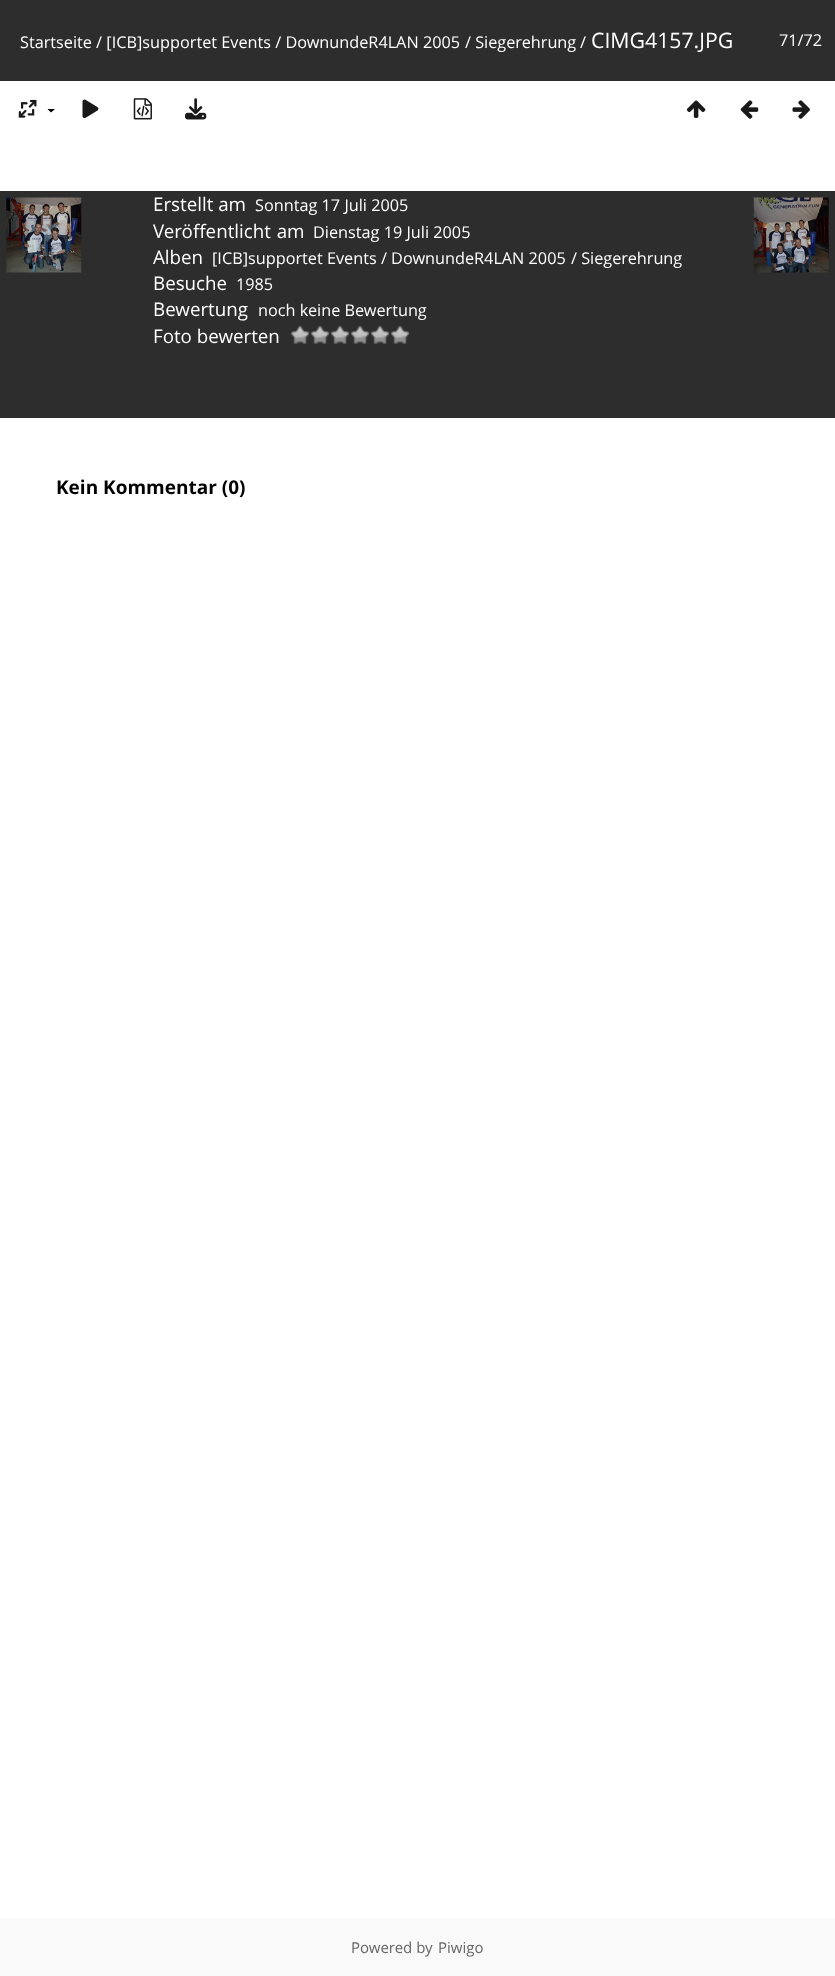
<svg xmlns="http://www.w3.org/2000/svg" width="835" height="1976">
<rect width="100%" height="100%" fill="#fff"/>
<rect width="835" height="81" fill="#2d2d2d"/>
<text x="20" y="48" style="font-family:Open Sans;font-size:16.25px;fill:#fff">Startseite / [ICB]supportet Events / DownundeR4LAN 2005</text>
<text x="465" y="48" style="font-family:Open Sans;font-size:16.25px;fill:#fff">/ Siegerehrung</text>
<text x="580" y="48" style="font-family:Open Sans;font-size:16.25px;fill:#fff">/</text>
<text x="591" y="48" style="font-family:Open Sans;font-size:21.25px;fill:#fff">CIMG4157.JPG</text>
<text x="779" y="46" style="font-family:Open Sans;font-size:16.25px;fill:#fff">71/72</text>
<image x="18" y="99" width="19" height="19" href="media/1.png"/>
<path d="M47.5 109h7.5l-4 3.5z" fill="#000"/>
<image x="82" y="99" width="17" height="20" href="media/2.png"/>
<image x="133" y="98" width="19" height="22" href="media/3.png"/>
<image x="185" y="98" width="22" height="22" href="media/4.png"/>
<image x="686" y="100" width="20" height="18" href="media/5.png"/>
<image x="740" y="100" width="19" height="19" href="media/6.png"/>
<image x="792" y="100" width="18" height="19" href="media/7.png"/>
<rect y="191" width="835" height="227" fill="#2d2d2d"/>
<text x="153" y="211" style="font-family:Open Sans;font-size:18.75px;fill:#fff">Erstellt am</text>
<text x="255" y="211" style="font-family:Open Sans;font-size:16.25px;fill:#fff">Sonntag 17 Juli 2005</text>
<text x="153" y="238" word-spacing="1" style="font-family:Open Sans;font-size:18.75px;fill:#fff">Veröffentlicht am</text>
<text x="313" y="238" style="font-family:Open Sans;font-size:16.25px;fill:#fff">Dienstag 19 Juli 2005</text>
<text x="153" y="264" style="font-family:Open Sans;font-size:18.75px;fill:#fff">Alben</text>
<text x="212" y="264" style="font-family:Open Sans;font-size:16.25px;fill:#fff">[ICB]supportet Events / DownundeR4LAN 2005</text>
<text x="571" y="264" style="font-family:Open Sans;font-size:16.25px;fill:#fff">/ Siegerehrung</text>
<text x="153" y="290" style="font-family:Open Sans;font-size:18.75px;fill:#fff">Besuche</text>
<text x="236" y="290" style="font-family:Open Sans;font-size:16.25px;fill:#fff">1985</text>
<text x="153" y="316" style="font-family:Open Sans;font-size:18.75px;fill:#fff">Bewertung</text>
<text x="258" y="316" style="font-family:Open Sans;font-size:16.25px;fill:#fff">noch keine Bewertung</text>
<text x="153" y="343" style="font-family:Open Sans;font-size:18.75px;fill:#fff">Foto bewerten</text>
<image x="290" y="326" width="20" height="18" href="media/8.png"/>
<image x="310" y="326" width="20" height="18" href="media/9.png"/>
<image x="330" y="326" width="20" height="18" href="media/9.png"/>
<image x="350" y="326" width="20" height="18" href="media/9.png"/>
<image x="370" y="326" width="20" height="18" href="media/9.png"/>
<image x="390" y="326" width="20" height="18" href="media/9.png"/>
<image x="6" y="197" width="76" height="76" href="media/10.png"/>
<image x="753" y="197" width="76" height="76" href="media/11.png"/>
<text x="56" y="494" style="font-family:Open Sans;font-size:19px;font-weight:bold;fill:#000">Kein Kommentar (0)</text>
<rect y="1918" width="835" height="58" fill="#f9f9f9"/>
<text x="351" y="1953" style="font-family:Open Sans;font-size:15px;fill:#666">Powered by</text>
<text x="438" y="1953" style="font-family:Open Sans;font-size:15px;fill:#666">Piwigo</text>
</svg>
